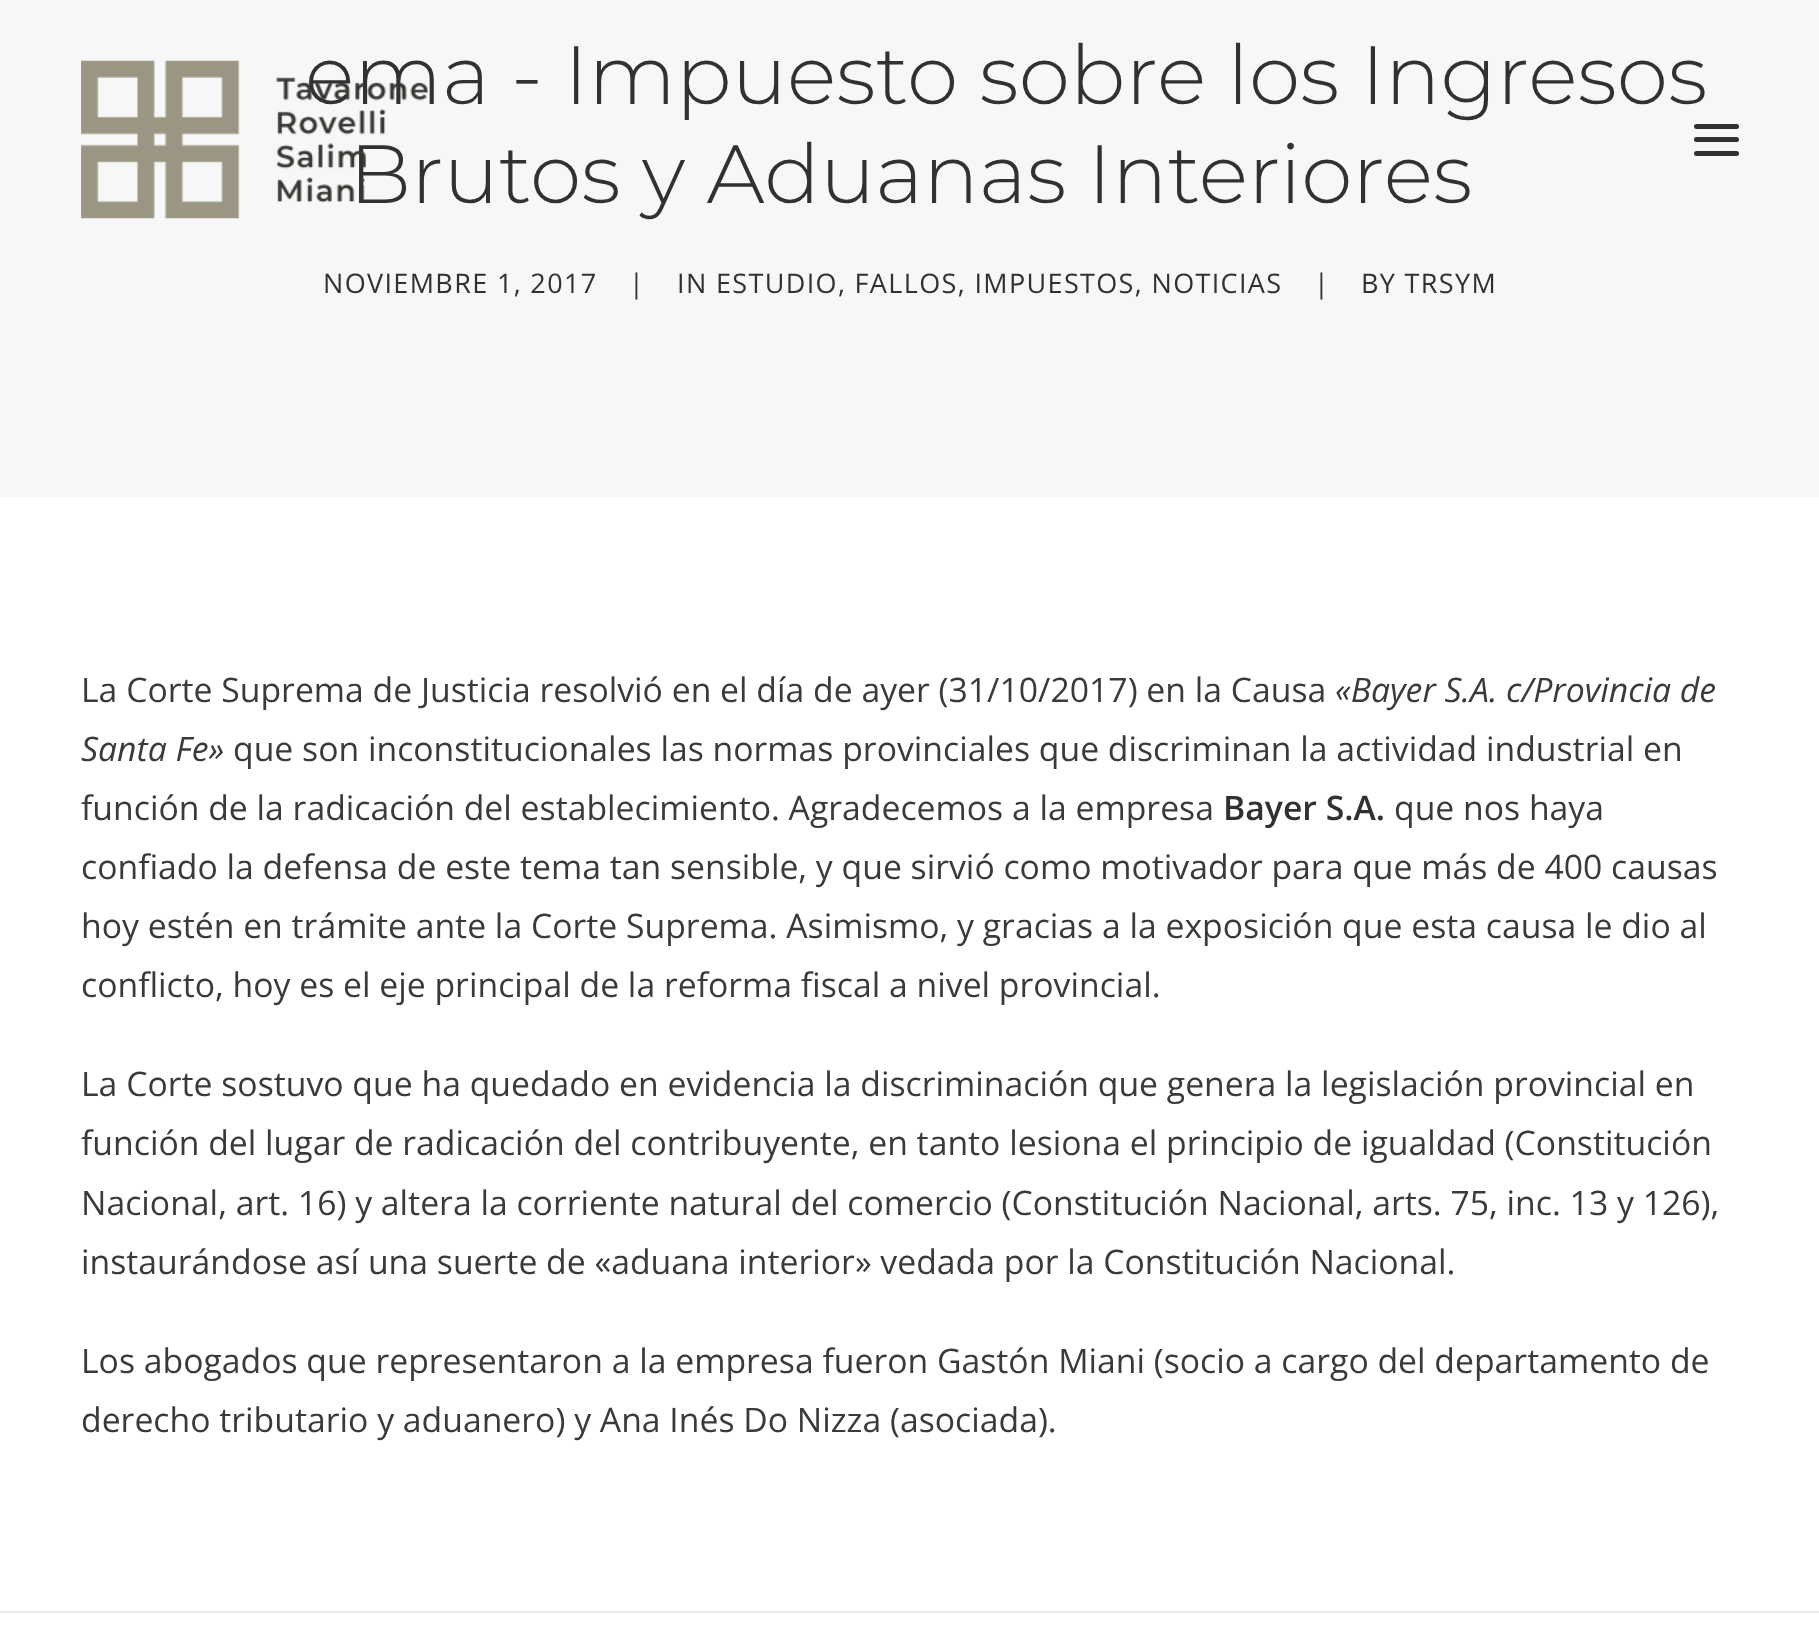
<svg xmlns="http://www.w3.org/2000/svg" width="1819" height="1638">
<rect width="100%" height="100%" fill="#f7f7f7"/>
<text x="305" y="104" style="font-family:Montserrat;font-size:82.5px;font-weight:300;fill:#303133">ema - Impuesto sobre los Ingresos</text>
<text x="349" y="203" style="font-family:Montserrat;font-size:82.5px;font-weight:300;fill:#303133">Brutos y Aduanas Interiores</text>
<text x="323" y="293" style="font-family:Open Sans;font-size:27px;letter-spacing:1.35px;fill:#303133">NOVIEMBRE 1, 2017</text>
<text x="629" y="293" style="font-family:Open Sans;font-size:27px;letter-spacing:1.35px;fill:#303133">|</text>
<text x="677" y="293" style="font-family:Open Sans;font-size:27px;letter-spacing:1.35px;fill:#303133">IN ESTUDIO, FALLOS, IMPUESTOS, NOTICIAS</text>
<text x="1314" y="293" style="font-family:Open Sans;font-size:27px;letter-spacing:1.35px;fill:#303133">|</text>
<text x="1361" y="293" style="font-family:Open Sans;font-size:27px;letter-spacing:1.35px;fill:#303133">BY TRSYM</text>
<rect y="497" width="1819" height="1141" fill="#fff"/>
<text x="81" y="702" style="font-family:Open Sans;font-size:33.75px;fill:#3a3a3a">La Corte Suprema de Justicia resolvió en el día de ayer (31/10/2017) en la Causa</text>
<text x="1335" y="702" style="font-family:Open Sans;font-size:33.75px;font-style:italic;fill:#3a3a3a">«Bayer S.A. c/Provincia de</text>
<text x="81" y="761" style="font-family:Open Sans;font-size:33.75px;font-style:italic;fill:#3a3a3a">Santa Fe»</text>
<text x="233" y="761" style="font-family:Open Sans;font-size:33.75px;fill:#3a3a3a">que son inconstitucionales las normas provinciales que discriminan la actividad industrial en</text>
<text x="81" y="820" style="font-family:Open Sans;font-size:33.75px;fill:#3a3a3a">función de la radicación del establecimiento. Agradecemos a la empresa</text>
<text x="1223" y="820" style="font-family:Open Sans;font-size:33.75px;font-weight:600;fill:#303133">Bayer S.A.</text>
<text x="1394" y="820" style="font-family:Open Sans;font-size:33.75px;fill:#3a3a3a">que nos haya</text>
<text x="81" y="879" style="font-family:Open Sans;font-size:33.75px;fill:#3a3a3a">confiado la defensa de este tema tan sensible, y que sirvió como motivador para que más de 400 causas</text>
<text x="81" y="938" style="font-family:Open Sans;font-size:33.75px;fill:#3a3a3a">hoy estén en trámite ante la Corte Suprema. Asimismo, y gracias a la exposición que esta causa le dio al</text>
<text x="81" y="997" style="font-family:Open Sans;font-size:33.75px;fill:#3a3a3a">conflicto, hoy es el eje principal de la reforma fiscal a nivel provincial.</text>
<text x="81" y="1096" style="font-family:Open Sans;font-size:33.75px;fill:#3a3a3a">La Corte sostuvo que ha quedado en evidencia la discriminación que genera la legislación provincial en</text>
<text x="81" y="1155" style="font-family:Open Sans;font-size:33.75px;fill:#3a3a3a">función del lugar de radicación del contribuyente, en tanto lesiona el principio de igualdad (Constitución</text>
<text x="81" y="1215" style="font-family:Open Sans;font-size:33.75px;fill:#3a3a3a">Nacional, art. 16) y altera la corriente natural del comercio (Constitución Nacional, arts. 75, inc. 13 y 126),</text>
<text x="81" y="1274" style="font-family:Open Sans;font-size:33.75px;fill:#3a3a3a">instaurándose así una suerte de «aduana interior» vedada por la Constitución Nacional.</text>
<text x="81" y="1373" style="font-family:Open Sans;font-size:33.75px;fill:#3a3a3a">Los abogados que representaron a la empresa fueron Gastón Miani (socio a cargo del departamento de</text>
<text x="81" y="1432" style="font-family:Open Sans;font-size:33.75px;fill:#3a3a3a">derecho tributario y aduanero) y Ana Inés Do Nizza (asociada).</text>
<rect y="1611" width="1819" height="2" fill="#eaeaea"/>
<image x="81" y="60" width="347" height="159" href="media/1.png"/>
<rect x="1694" y="137" width="45" height="5" rx="2.5" fill="#303133"/>
<rect x="1694" y="124" width="45" height="5" rx="2.5" fill="#303133"/>
<rect x="1694" y="151" width="45" height="5" rx="2.5" fill="#303133"/>
</svg>
